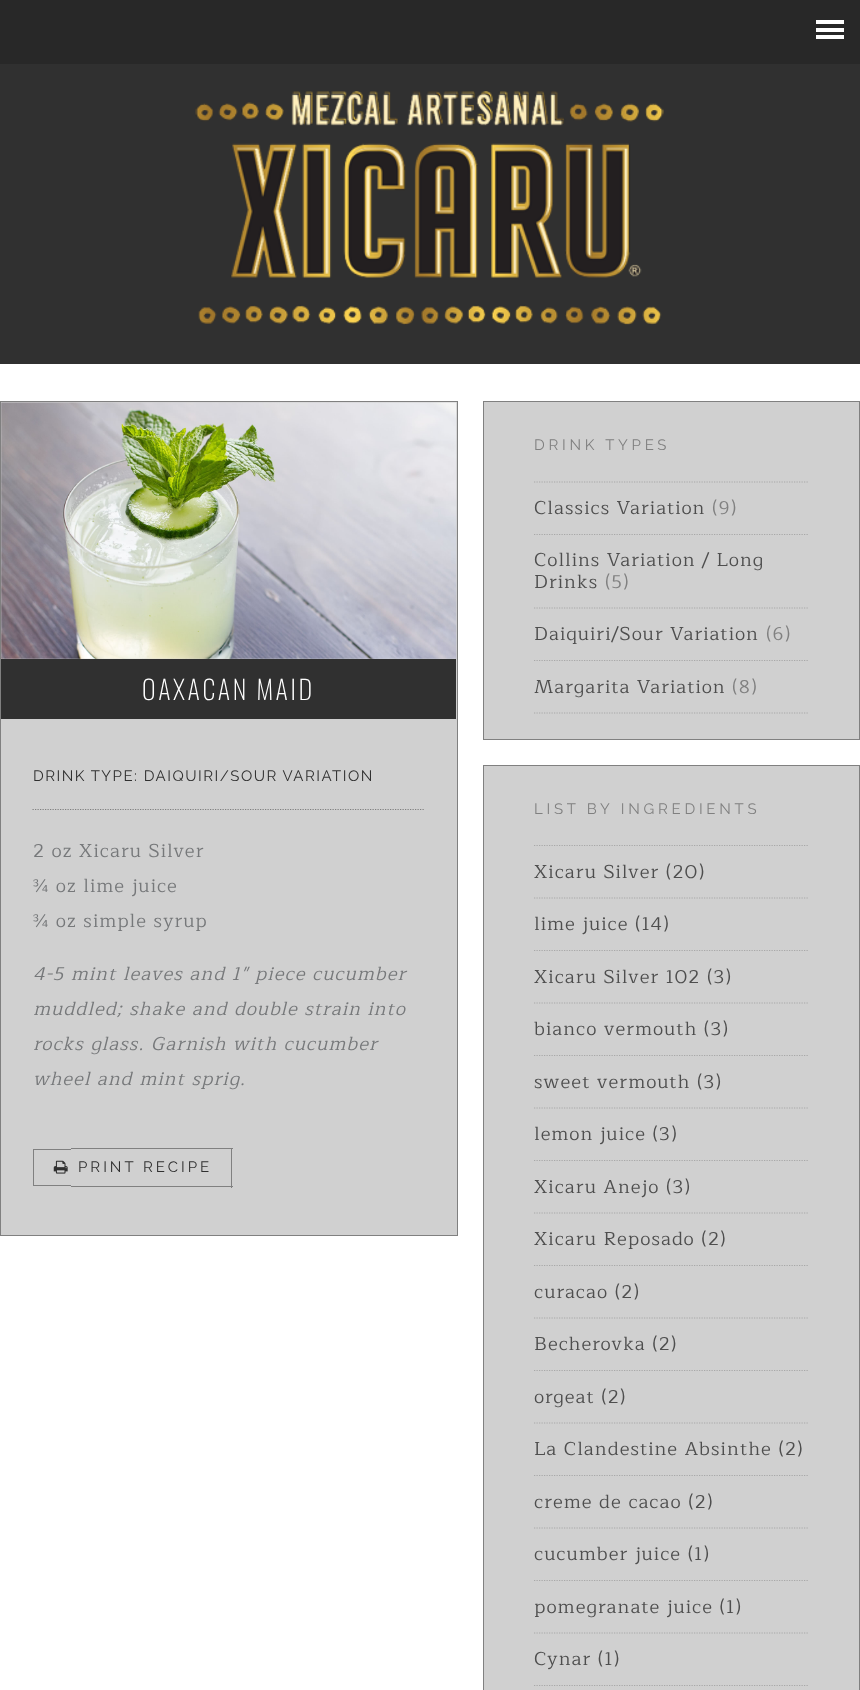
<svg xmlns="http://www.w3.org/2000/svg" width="860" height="1690">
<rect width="100%" height="100%" fill="#fff"/>
<rect y="64" width="860" height="300" fill="#303030"/>
<rect width="860" height="64" fill="#282828"/>
<rect x="816" y="20" width="28" height="4" fill="#fff"/>
<rect x="816" y="28" width="28" height="4" fill="#fff"/>
<rect x="816" y="35" width="28" height="4" fill="#fff"/>
<image x="195" y="91" width="469" height="234" href="media/1.png"/>
<rect x="0.5" y="401.5" width="457" height="834" fill="#d0d0d0" stroke="#808080"/>
<image x="1" y="402" width="456" height="257" href="media/2.png"/>
<rect x="1" y="659" width="455" height="60" fill="#303030"/>
<text x="142" y="700" style="font-family:Oswald;font-size:26.25px;font-weight:200;letter-spacing:2.6px;fill:#fff">OAXACAN MAID</text>
<path d="M32.5 809.5h392.5" fill="none" stroke="#808080" stroke-width="1.2" stroke-dasharray="1.25 1.25"/>
<text x="33" y="781" style="font-family:Raleway;font-size:15px;letter-spacing:1.5px;fill:#303030">DRINK TYPE: DAIQUIRI/SOUR VARIATION</text>
<text x="33" y="857" style="font-family:Maitree;font-size:18.75px;letter-spacing:1.1px;fill:#76787a">2 oz Xicaru Silver</text>
<text x="33" y="892" style="font-family:Maitree;font-size:18.75px;letter-spacing:1.1px;fill:#76787a">¾ oz lime juice</text>
<text x="33" y="927" style="font-family:Maitree;font-size:18.75px;letter-spacing:1.1px;fill:#76787a">¾ oz simple syrup</text>
<text x="33" y="980" style="font-family:Maitree;font-size:18.75px;font-style:italic;letter-spacing:1.1px;fill:#76787a">4-5 mint leaves and 1" piece cucumber</text>
<text x="33" y="1015" style="font-family:Maitree;font-size:18.75px;font-style:italic;letter-spacing:1.1px;fill:#76787a">muddled; shake and double strain into</text>
<text x="33" y="1050" style="font-family:Maitree;font-size:18.75px;font-style:italic;letter-spacing:1.1px;fill:#76787a">rocks glass. Garnish with cucumber</text>
<text x="33" y="1085" style="font-family:Maitree;font-size:18.75px;font-style:italic;letter-spacing:1.1px;fill:#76787a">wheel and mint sprig.</text>
<rect x="33" y="1149" width="38" height="1" fill="#808080"/>
<rect x="33" y="1185" width="38" height="1" fill="#808080"/>
<rect x="33" y="1149" width="1" height="37" fill="#808080"/>
<rect x="71" y="1148" width="162" height="1" fill="#808080"/>
<rect x="231" y="1148" width="1" height="40" fill="#808080"/>
<rect x="71" y="1186" width="162" height="1" fill="#808080"/>
<image x="53" y="1160" width="15" height="14" href="media/3.png"/>
<text x="78" y="1172" style="font-family:Raleway;font-size:15px;letter-spacing:3px;fill:#303030">PRINT RECIPE</text>
<rect x="483.5" y="401.5" width="376" height="338" fill="#d0d0d0" stroke="#808080"/>
<text x="534" y="450" style="font-family:Raleway;font-size:15px;letter-spacing:3.75px;fill:#808080">DRINK TYPES</text>
<path d="M534 713h275" fill="none" stroke="#a8a8a8" stroke-width="1.2" stroke-dasharray="1.25 1.25"/>
<path d="M534 482h275" fill="none" stroke="#a8a8a8" stroke-width="1.2" stroke-dasharray="1.25 1.25"/>
<text x="534" y="514" style="font-family:Maitree;font-size:18.75px;letter-spacing:1.1px;fill:#4e4e4e">Classics Variation</text>
<text x="712" y="514" style="font-family:Maitree;font-size:18.75px;letter-spacing:1.1px;fill:#808080">(9)</text>
<path d="M534 534.5h275" fill="none" stroke="#a8a8a8" stroke-width="1.2" stroke-dasharray="1.25 1.25"/>
<text x="534" y="566" style="font-family:Maitree;font-size:18.75px;letter-spacing:1.1px;fill:#4e4e4e">Collins Variation / Long</text>
<text x="534" y="588" style="font-family:Maitree;font-size:18.75px;letter-spacing:1.1px;fill:#4e4e4e">Drinks</text>
<text x="605" y="588" style="font-family:Maitree;font-size:18.75px;letter-spacing:1.1px;fill:#808080">(5)</text>
<path d="M534 608h275" fill="none" stroke="#a8a8a8" stroke-width="1.2" stroke-dasharray="1.25 1.25"/>
<text x="534" y="640" style="font-family:Maitree;font-size:18.75px;letter-spacing:1.1px;fill:#4e4e4e">Daiquiri/Sour Variation</text>
<text x="766" y="640" style="font-family:Maitree;font-size:18.75px;letter-spacing:1.1px;fill:#808080">(6)</text>
<path d="M534 660.5h275" fill="none" stroke="#a8a8a8" stroke-width="1.2" stroke-dasharray="1.25 1.25"/>
<text x="534" y="693" style="font-family:Maitree;font-size:18.75px;letter-spacing:1.1px;fill:#4e4e4e">Margarita Variation</text>
<text x="732" y="693" style="font-family:Maitree;font-size:18.75px;letter-spacing:1.1px;fill:#808080">(8)</text>
<rect x="483.5" y="765.5" width="376" height="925" fill="#d0d0d0" stroke="#808080"/>
<text x="534" y="814" style="font-family:Raleway;font-size:15px;letter-spacing:3.75px;fill:#808080">LIST BY INGREDIENTS</text>
<path d="M534 845.5h275" fill="none" stroke="#a8a8a8" stroke-width="1.2" stroke-dasharray="1.25 1.25"/>
<text x="534" y="878" style="font-family:Maitree;font-size:18.75px;letter-spacing:1.1px;fill:#4e4e4e">Xicaru Silver (20)</text>
<path d="M534 898h275" fill="none" stroke="#a8a8a8" stroke-width="1.2" stroke-dasharray="1.25 1.25"/>
<text x="534" y="930" style="font-family:Maitree;font-size:18.75px;letter-spacing:1.1px;fill:#4e4e4e">lime juice (14)</text>
<path d="M534 950.5h275" fill="none" stroke="#a8a8a8" stroke-width="1.2" stroke-dasharray="1.25 1.25"/>
<text x="534" y="983" style="font-family:Maitree;font-size:18.75px;letter-spacing:1.1px;fill:#4e4e4e">Xicaru Silver 102 (3)</text>
<path d="M534 1003h275" fill="none" stroke="#a8a8a8" stroke-width="1.2" stroke-dasharray="1.25 1.25"/>
<text x="534" y="1035" style="font-family:Maitree;font-size:18.75px;letter-spacing:1.1px;fill:#4e4e4e">bianco vermouth (3)</text>
<path d="M534 1055.5h275" fill="none" stroke="#a8a8a8" stroke-width="1.2" stroke-dasharray="1.25 1.25"/>
<text x="534" y="1088" style="font-family:Maitree;font-size:18.75px;letter-spacing:1.1px;fill:#4e4e4e">sweet vermouth (3)</text>
<path d="M534 1108h275" fill="none" stroke="#a8a8a8" stroke-width="1.2" stroke-dasharray="1.25 1.25"/>
<text x="534" y="1140" style="font-family:Maitree;font-size:18.75px;letter-spacing:1.1px;fill:#4e4e4e">lemon juice (3)</text>
<path d="M534 1160.5h275" fill="none" stroke="#a8a8a8" stroke-width="1.2" stroke-dasharray="1.25 1.25"/>
<text x="534" y="1193" style="font-family:Maitree;font-size:18.75px;letter-spacing:1.1px;fill:#4e4e4e">Xicaru Anejo (3)</text>
<path d="M534 1213h275" fill="none" stroke="#a8a8a8" stroke-width="1.2" stroke-dasharray="1.25 1.25"/>
<text x="534" y="1245" style="font-family:Maitree;font-size:18.75px;letter-spacing:1.1px;fill:#4e4e4e">Xicaru Reposado (2)</text>
<path d="M534 1265.5h275" fill="none" stroke="#a8a8a8" stroke-width="1.2" stroke-dasharray="1.25 1.25"/>
<text x="534" y="1298" style="font-family:Maitree;font-size:18.75px;letter-spacing:1.1px;fill:#4e4e4e">curacao (2)</text>
<path d="M534 1318h275" fill="none" stroke="#a8a8a8" stroke-width="1.2" stroke-dasharray="1.25 1.25"/>
<text x="534" y="1350" style="font-family:Maitree;font-size:18.75px;letter-spacing:1.1px;fill:#4e4e4e">Becherovka (2)</text>
<path d="M534 1370.5h275" fill="none" stroke="#a8a8a8" stroke-width="1.2" stroke-dasharray="1.25 1.25"/>
<text x="534" y="1403" style="font-family:Maitree;font-size:18.75px;letter-spacing:1.1px;fill:#4e4e4e">orgeat (2)</text>
<path d="M534 1423h275" fill="none" stroke="#a8a8a8" stroke-width="1.2" stroke-dasharray="1.25 1.25"/>
<text x="534" y="1455" style="font-family:Maitree;font-size:18.75px;letter-spacing:1.1px;fill:#4e4e4e">La Clandestine Absinthe (2)</text>
<path d="M534 1475.5h275" fill="none" stroke="#a8a8a8" stroke-width="1.2" stroke-dasharray="1.25 1.25"/>
<text x="534" y="1508" style="font-family:Maitree;font-size:18.75px;letter-spacing:1.1px;fill:#4e4e4e">creme de cacao (2)</text>
<path d="M534 1528h275" fill="none" stroke="#a8a8a8" stroke-width="1.2" stroke-dasharray="1.25 1.25"/>
<text x="534" y="1560" style="font-family:Maitree;font-size:18.75px;letter-spacing:1.1px;fill:#4e4e4e">cucumber juice (1)</text>
<path d="M534 1580.5h275" fill="none" stroke="#a8a8a8" stroke-width="1.2" stroke-dasharray="1.25 1.25"/>
<text x="534" y="1613" style="font-family:Maitree;font-size:18.75px;letter-spacing:1.1px;fill:#4e4e4e">pomegranate juice (1)</text>
<path d="M534 1633h275" fill="none" stroke="#a8a8a8" stroke-width="1.2" stroke-dasharray="1.25 1.25"/>
<text x="534" y="1665" style="font-family:Maitree;font-size:18.75px;letter-spacing:1.1px;fill:#4e4e4e">Cynar (1)</text>
<path d="M534 1685.5h275" fill="none" stroke="#a8a8a8" stroke-width="1.2" stroke-dasharray="1.25 1.25"/>
</svg>
